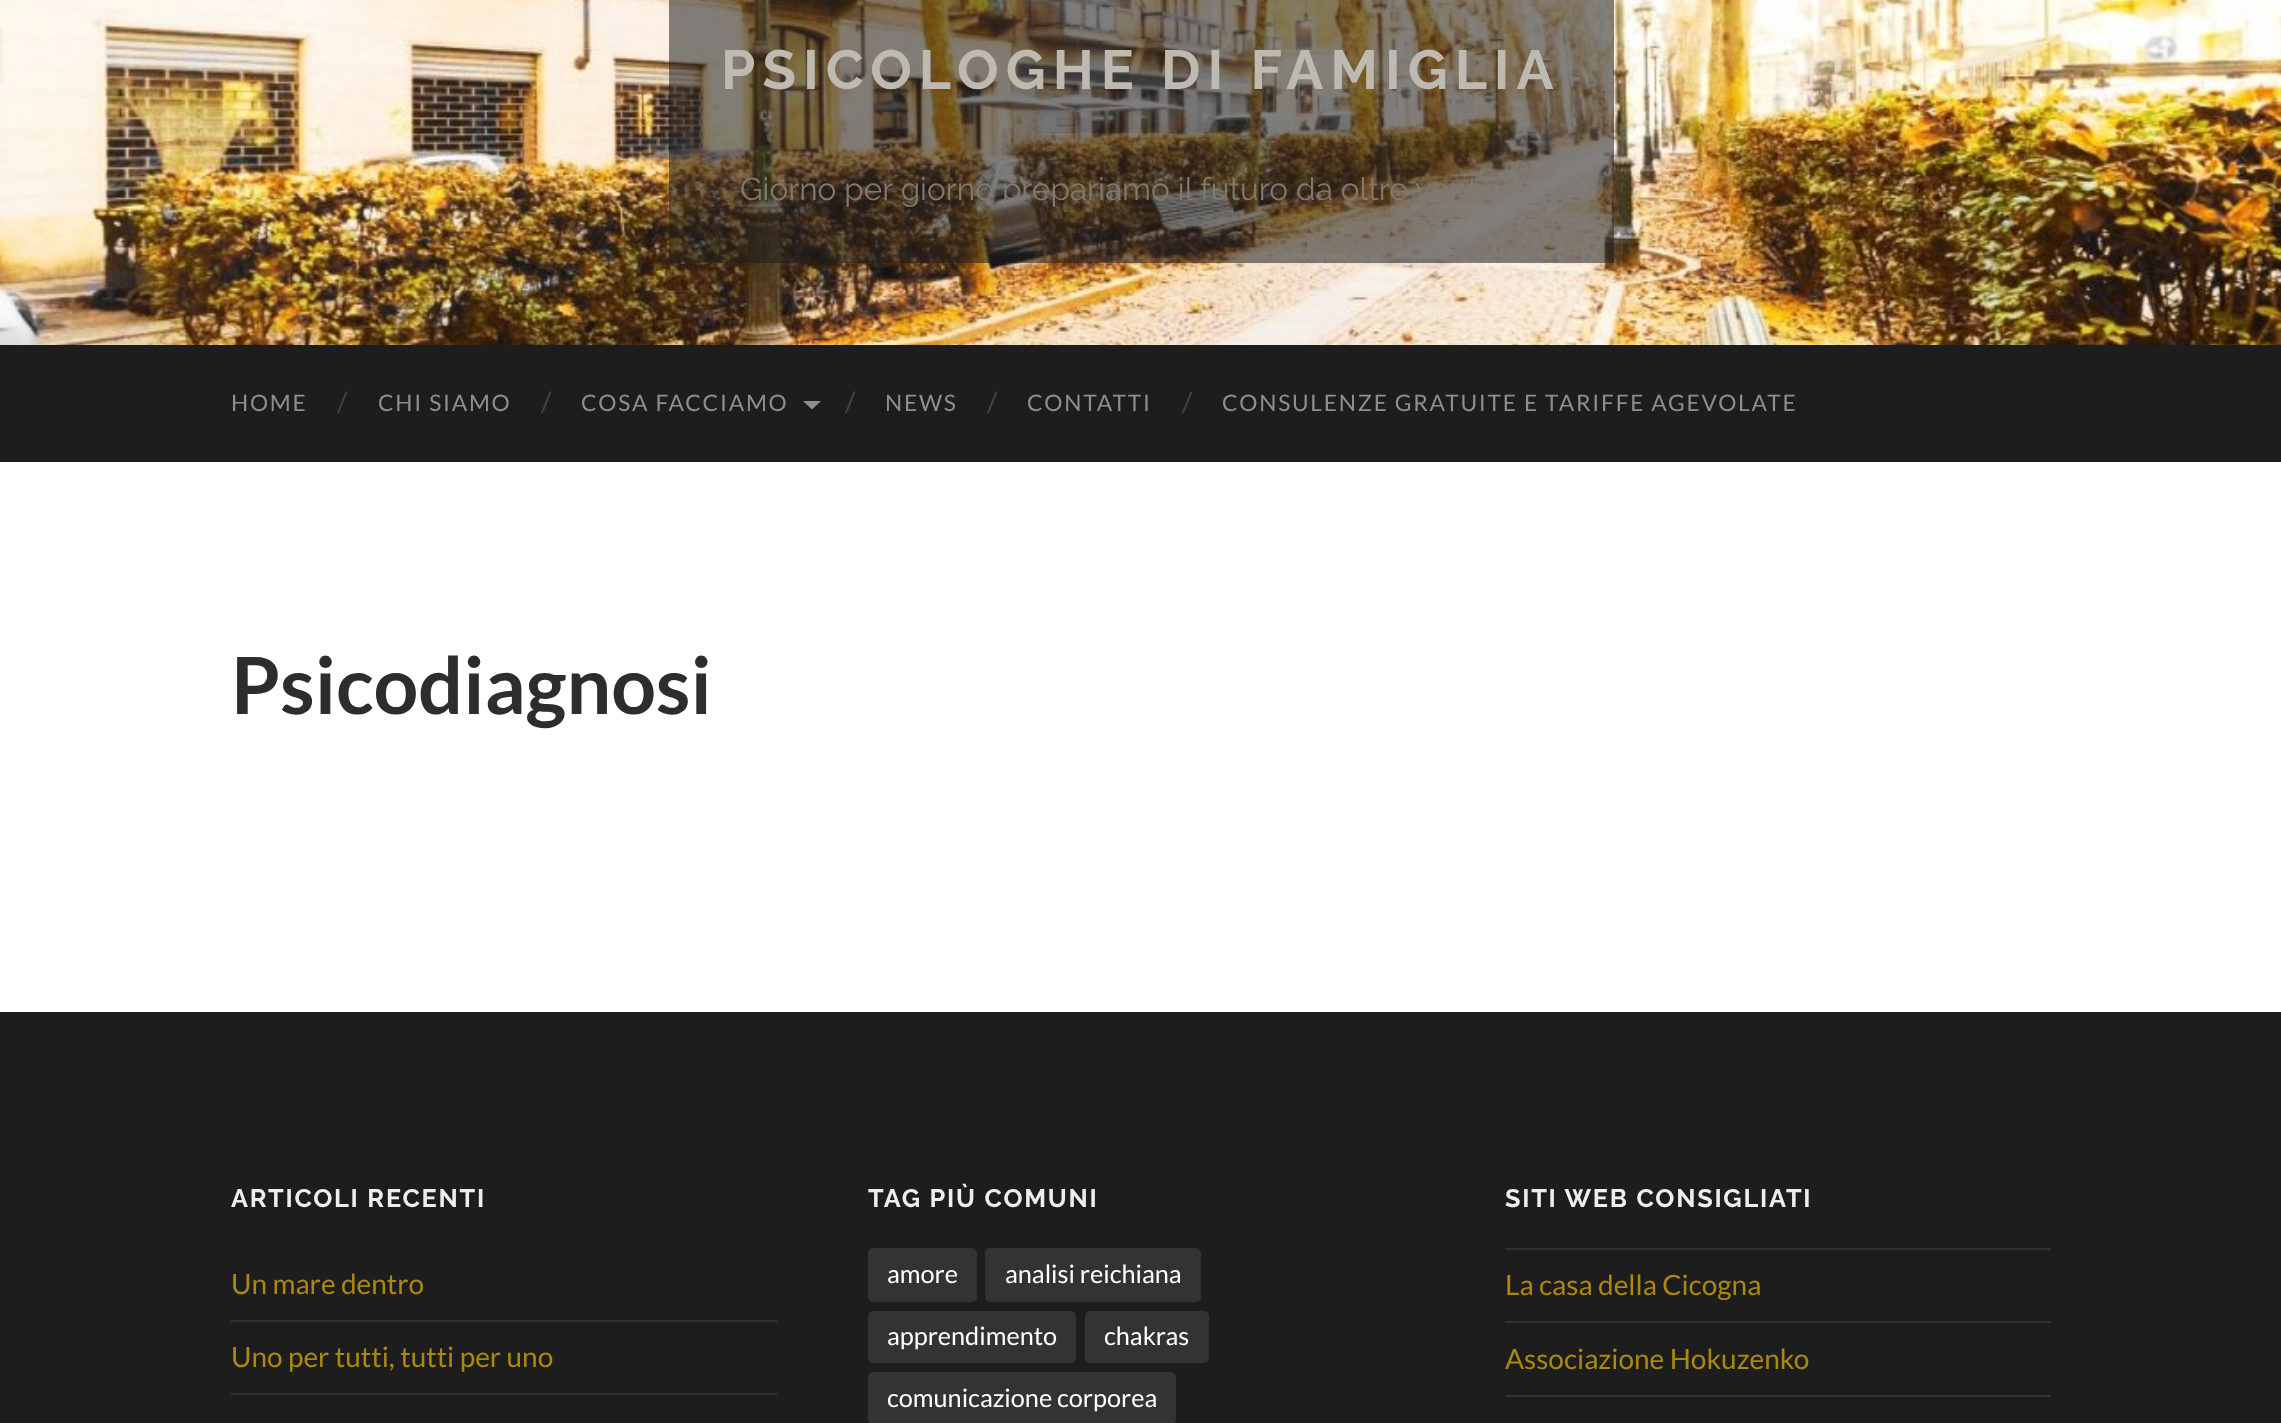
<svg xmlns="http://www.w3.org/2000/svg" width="2281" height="1423">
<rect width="100%" height="100%" fill="#fff"/>
<image x="0" y="0" width="2281" height="345" href="media/1.png"/>
<rect x="669" width="945" height="263" fill="#1d1d1d8c"/>
<text x="721" y="89" style="font-family:Raleway;font-size:55.1px;font-weight:100;letter-spacing:7px;fill:#beb9b1">PSICOLOGHE DI FAMIGLIA</text>
<rect x="1054" y="133" width="175" height="4" fill="#ffffff0f"/>
<text x="740" y="200" style="font-family:'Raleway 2';font-size:31.5px;font-weight:100;fill:#82796e">Giorno per giorno prepariamo il futuro da oltre vent</text>
<rect y="345" width="2281" height="117" fill="#1d1d1d"/>
<text x="231" y="411" style="font-family:Lato;font-size:22.75px;letter-spacing:1.75px;fill:#8e8e8e">HOME</text>
<text x="337" y="412" style="font-family:Lato;font-size:28px;fill:#444">/</text>
<text x="378" y="411" style="font-family:Lato;font-size:22.75px;letter-spacing:1.75px;fill:#8e8e8e">CHI SIAMO</text>
<text x="541" y="412" style="font-family:Lato;font-size:28px;fill:#444">/</text>
<text x="581" y="411" style="font-family:Lato;font-size:22.75px;letter-spacing:1.75px;fill:#8e8e8e">COSA FACCIAMO</text>
<path d="M803 401h18l-9 8.5z" fill="#8e8e8e"/>
<text x="845" y="412" style="font-family:Lato;font-size:28px;fill:#444">/</text>
<text x="885" y="411" style="font-family:Lato;font-size:22.75px;letter-spacing:1.75px;fill:#8e8e8e">NEWS</text>
<text x="987" y="412" style="font-family:Lato;font-size:28px;fill:#444">/</text>
<text x="1027" y="411" style="font-family:Lato;font-size:22.75px;letter-spacing:1.75px;fill:#8e8e8e">CONTATTI</text>
<text x="1182" y="412" style="font-family:Lato;font-size:28px;fill:#444">/</text>
<text x="1222" y="411" style="font-family:Lato;font-size:22.75px;letter-spacing:1.75px;fill:#8e8e8e">CONSULENZE GRATUITE E TARIFFE AGEVOLATE</text>
<text x="231" y="714" style="font-family:Lato;font-size:78.75px;font-weight:bold;fill:#2d2d2d">Psicodiagnosi</text>
<rect y="1012" width="2281" height="411" fill="#1d1d1d"/>
<text x="231" y="1207" style="font-family:Raleway;font-size:25.25px;font-weight:100;letter-spacing:1.75px;fill:#eee">ARTICOLI RECENTI</text>
<text x="231" y="1294" style="font-family:Lato;font-size:28px;fill:#ab880f">Un mare dentro</text>
<rect x="231" y="1320" width="546" height="2" fill="#333"/>
<text x="231" y="1367" style="font-family:Lato;font-size:28px;fill:#ab880f">Uno per tutti, tutti per uno</text>
<rect x="231" y="1393" width="546" height="2" fill="#333"/>
<text x="868" y="1207" style="font-family:Raleway;font-size:25.25px;font-weight:100;letter-spacing:1.75px;fill:#eee">TAG PIÙ COMUNI</text>
<rect x="868" y="1248" width="109" height="54" rx="5" fill="#333"/>
<text x="887" y="1283" style="font-family:Lato;font-size:25.25px;fill:#fff">amore</text>
<rect x="985" y="1248" width="216" height="54" rx="5" fill="#333"/>
<text x="1005" y="1283" style="font-family:Lato;font-size:25.25px;fill:#fff">analisi reichiana</text>
<rect x="868" y="1311" width="208" height="52" rx="5" fill="#333"/>
<text x="887" y="1345" style="font-family:Lato;font-size:25.25px;fill:#fff">apprendimento</text>
<rect x="1085" y="1311" width="124" height="52" rx="5" fill="#333"/>
<text x="1104" y="1345" style="font-family:Lato;font-size:25.25px;fill:#fff">chakras</text>
<rect x="868" y="1372" width="308" height="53" rx="5" fill="#333"/>
<text x="887" y="1407" style="font-family:Lato;font-size:25.25px;fill:#fff">comunicazione corporea</text>
<text x="1505" y="1207" style="font-family:Raleway;font-size:25.25px;font-weight:100;letter-spacing:1.75px;fill:#eee">SITI WEB CONSIGLIATI</text>
<rect x="1505" y="1248" width="546" height="2" fill="#333"/>
<text x="1505" y="1295" style="font-family:Lato;font-size:28px;fill:#ab880f">La casa della Cicogna</text>
<rect x="1505" y="1321" width="546" height="2" fill="#333"/>
<text x="1505" y="1369" style="font-family:Lato;font-size:28px;fill:#ab880f">Associazione Hokuzenko</text>
<rect x="1505" y="1395" width="546" height="2" fill="#333"/>
</svg>
